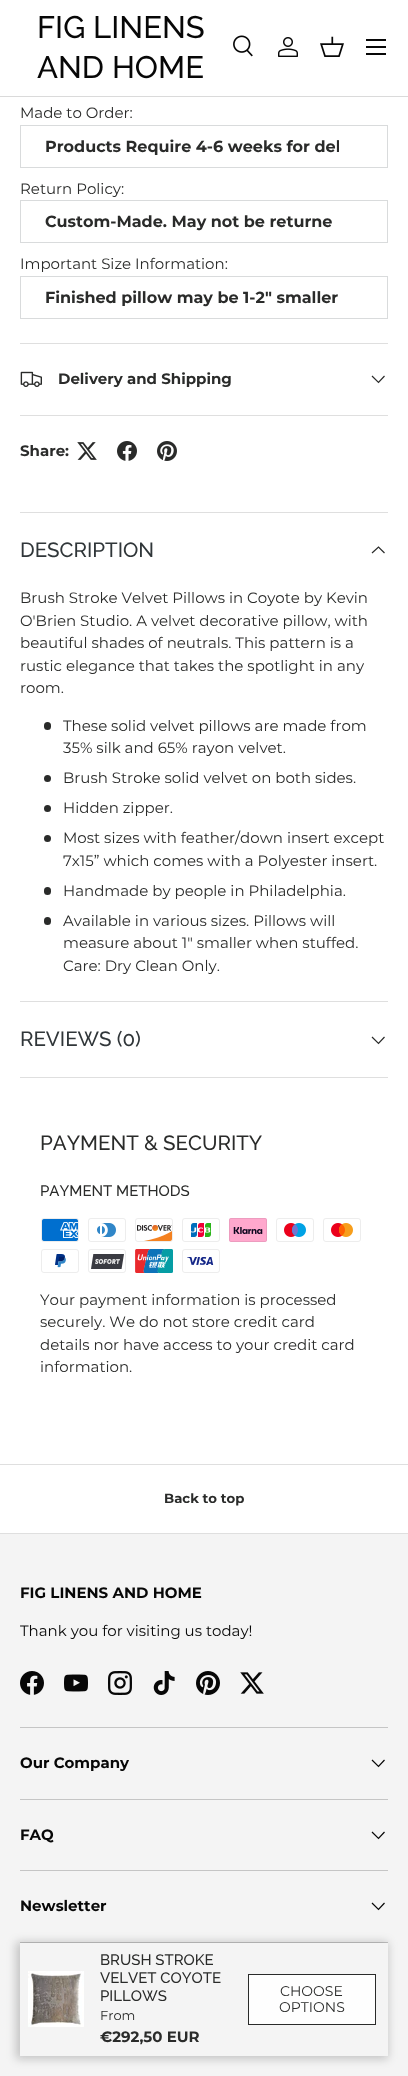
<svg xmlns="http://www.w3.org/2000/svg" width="408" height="2076">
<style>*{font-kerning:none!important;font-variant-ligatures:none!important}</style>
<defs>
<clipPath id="clip1"><rect x="45" y="137" width="294" height="19"/></clipPath>
</defs>
<rect width="100%" height="100%" fill="#fff"/>
<rect y="96" width="408" height="1" fill="#dadada"/>
<text x="37" y="38" style="font-family:Raleway;font-size:31px;font-weight:500;fill:#070707">FIG LINENS</text>
<text x="37" y="78" style="font-family:Raleway;font-size:31px;font-weight:500;fill:#070707">AND HOME</text>
<image x="233" y="35" width="20" height="22" href="media/1.png"/>
<image x="278" y="37" width="20" height="20" href="media/2.png"/>
<image x="320" y="36" width="24" height="21" href="media/3.png"/>
<rect x="366" y="39" width="20" height="2" fill="#070707"/>
<rect x="366" y="53" width="20" height="2" fill="#070707"/>
<rect x="366" y="46" width="20" height="2" fill="#070707"/>
<text x="20" y="118" style="font-family:Montserrat;font-size:15px;fill:#2a2b2a">Made to Order:</text>
<rect x="20.5" y="125.5" width="367" height="42" fill="none" stroke="#d9dbdc"/>
<g clip-path="url(#clip1)">
<text x="45" y="152" style="font-family:Montserrat;font-size:16px;font-weight:bold;fill:#2a2b2a">Products Require 4-6 weeks for del</text>
</g>
<text x="20" y="194" style="font-family:Montserrat;font-size:15px;fill:#2a2b2a">Return Policy:</text>
<rect x="20.5" y="200.5" width="367" height="42" fill="none" stroke="#d9dbdc"/>
<text x="45" y="227" style="font-family:Montserrat;font-size:16px;font-weight:bold;fill:#2a2b2a">Custom-Made. May not be returne</text>
<text x="20" y="269" style="font-family:Montserrat;font-size:15px;fill:#2a2b2a">Important Size Information:</text>
<rect x="20.5" y="276.5" width="367" height="42" fill="none" stroke="#d9dbdc"/>
<text x="45" y="303" style="font-family:Montserrat;font-size:16px;font-weight:bold;fill:#2a2b2a">Finished pillow may be 1-2" smaller</text>
<rect x="20" y="343" width="368" height="1" fill="#dfdfdf"/>
<rect x="20" y="415" width="368" height="1" fill="#dfdfdf"/>
<image x="20" y="371" width="22" height="16" href="media/4.png"/>
<text x="58" y="384" style="font-family:Montserrat;font-size:15px;font-weight:bold;fill:#2a2b2a">Delivery and Shipping</text>
<path d="M384.5 376l-6 6.5l-6.5-6.5" fill="none" stroke="#2a2b2a" stroke-width="1.2"/>
<text x="20" y="456" style="font-family:Montserrat;font-size:15px;font-weight:bold;fill:#2a2b2a">Share:</text>
<image x="77" y="442" width="20" height="18" href="media/5.png"/>
<image x="117" y="441" width="20" height="20" href="media/6.png"/>
<image x="157" y="441" width="20" height="20" href="media/7.png"/>
<rect y="1534" width="408" height="542" fill="#f4f4f4"/>
<rect x="20" y="1942" width="368" height="1" fill="#c5c5c5"/>
<rect x="16" y="1942" width="372" height="117" fill="#00000033" filter="blur(5px)"/>
<rect x="20" y="1943" width="368" height="113" fill="#f4f4f4"/>
<image x="28" y="1971" width="56" height="56" href="media/8.png"/>
<text x="100" y="1965" style="font-family:Raleway;font-size:15px;font-weight:500;fill:#2a2b2a">BRUSH STROKE</text>
<text x="100" y="1983" style="font-family:Raleway;font-size:15px;font-weight:500;fill:#2a2b2a">VELVET COYOTE</text>
<text x="100" y="2001" style="font-family:Raleway;font-size:15px;font-weight:500;fill:#2a2b2a">PILLOWS</text>
<text x="100" y="2020" style="font-family:Montserrat;font-size:13px;fill:#2a2b2a">From</text>
<text x="100" y="2042" style="font-family:Montserrat;font-size:15px;font-weight:bold;fill:#2a2b2a">€292,50 EUR</text>
<rect x="248.5" y="1974.5" width="127" height="50" fill="#fefefe" stroke="#2a2b2a"/>
<text x="280" y="1996" style="font-family:Montserrat;font-size:14px;fill:#2a2b2a">CHOOSE</text>
<text x="279" y="2012" style="font-family:Montserrat;font-size:14px;fill:#2a2b2a">OPTIONS</text>
<rect x="20" y="512" width="368" height="1" fill="#dfdfdf"/>
<rect x="20" y="1001" width="368" height="1" fill="#dfdfdf"/>
<text x="20" y="557" style="font-family:Raleway;font-size:20.5px;font-weight:500;fill:#303639">DESCRIPTION</text>
<path d="M384.5 553l-6-6l-6.5 6" fill="none" stroke="#2a2b2a" stroke-width="1.2"/>
<text x="20" y="603" style="font-family:Montserrat;font-size:15px;fill:#2a2b2a">Brush Stroke Velvet Pillows in Coyote by Kevin</text>
<text x="20" y="626" style="font-family:Montserrat;font-size:15px;fill:#2a2b2a">O'Brien Studio. A velvet decorative pillow, with</text>
<text x="20" y="648" style="font-family:Montserrat;font-size:15px;fill:#2a2b2a">beautiful shades of neutrals. This pattern is a</text>
<text x="20" y="671" style="font-family:Montserrat;font-size:15px;fill:#2a2b2a">rustic elegance that takes the spotlight in any</text>
<text x="20" y="693" style="font-family:Montserrat;font-size:15px;fill:#2a2b2a">room.</text>
<rect x="44" y="722" width="7" height="8" rx="3.5" fill="#2a2b2a"/>
<text x="63" y="731" style="font-family:Montserrat;font-size:15px;fill:#2a2b2a">These solid velvet pillows are made from</text>
<text x="63" y="753" style="font-family:Montserrat;font-size:15px;fill:#2a2b2a">35% silk and 65% rayon velvet.</text>
<circle cx="47.5" cy="778.5" r="3.5" fill="#2a2b2a"/>
<text x="63" y="783" style="font-family:Montserrat;font-size:15px;fill:#2a2b2a">Brush Stroke solid velvet on both sides.</text>
<circle cx="47.5" cy="808.5" r="3.5" fill="#2a2b2a"/>
<text x="63" y="813" style="font-family:Montserrat;font-size:15px;fill:#2a2b2a">Hidden zipper.</text>
<circle cx="47.5" cy="838.5" r="3.5" fill="#2a2b2a"/>
<text x="63" y="843" style="font-family:Montserrat;font-size:15px;fill:#2a2b2a">Most sizes with feather/down insert except</text>
<text x="63" y="866" style="font-family:Montserrat;font-size:15px;fill:#2a2b2a">7x15” which comes with a Polyester insert.</text>
<rect x="44" y="887" width="7" height="8" rx="3.5" fill="#2a2b2a"/>
<text x="63" y="896" style="font-family:Montserrat;font-size:15px;fill:#2a2b2a">Handmade by people in Philadelphia.</text>
<rect x="44" y="917" width="7" height="8" rx="3.5" fill="#2a2b2a"/>
<text x="63" y="926" style="font-family:Montserrat;font-size:15px;fill:#2a2b2a">Available in various sizes. Pillows will</text>
<text x="63" y="948" style="font-family:Montserrat;font-size:15px;fill:#2a2b2a">measure about 1" smaller when stuffed.</text>
<text x="63" y="971" style="font-family:Montserrat;font-size:15px;fill:#2a2b2a">Care: Dry Clean Only.</text>
<rect x="20" y="1077" width="368" height="1" fill="#dfdfdf"/>
<text x="20" y="1046" style="font-family:Raleway;font-size:20.5px;font-weight:500;fill:#303639">REVIEWS (0)</text>
<path d="M384.5 1037l-6 6.5l-6.5-6.5" fill="none" stroke="#2a2b2a" stroke-width="1.2"/>
<text x="40" y="1150" style="font-family:Raleway;font-size:20.5px;font-weight:500;fill:#2a2b2a">PAYMENT &amp; SECURITY</text>
<text x="40" y="1196" style="font-family:Raleway;font-size:15px;font-weight:500;fill:#2a2b2a">PAYMENT METHODS</text>
<image x="41" y="1218" width="38" height="24" href="media/9.png"/>
<image x="88" y="1218" width="38" height="24" href="media/10.png"/>
<image x="135" y="1218" width="38" height="24" href="media/11.png"/>
<image x="182" y="1218" width="38" height="24" href="media/12.png"/>
<image x="229" y="1218" width="38" height="24" href="media/13.png"/>
<image x="276" y="1218" width="38" height="24" href="media/14.png"/>
<image x="323" y="1218" width="38" height="24" href="media/15.png"/>
<image x="41" y="1249" width="38" height="24" href="media/16.png"/>
<image x="88" y="1249" width="38" height="24" href="media/17.png"/>
<image x="135" y="1249" width="38" height="24" href="media/18.png"/>
<image x="182" y="1249" width="38" height="24" href="media/19.png"/>
<text x="40" y="1305" style="font-family:Montserrat;font-size:15px;fill:#2a2b2a">Your payment information is processed</text>
<text x="40" y="1327" style="font-family:Montserrat;font-size:15px;fill:#2a2b2a">securely. We do not store credit card</text>
<text x="40" y="1350" style="font-family:Montserrat;font-size:15px;fill:#2a2b2a">details nor have access to your credit card</text>
<text x="40" y="1372" style="font-family:Montserrat;font-size:15px;fill:#2a2b2a">information.</text>
<rect y="1464" width="408" height="1" fill="#dfdfdf"/>
<rect y="1533" width="408" height="1" fill="#dfdfdf"/>
<text x="164" y="1503" style="font-family:Montserrat;font-size:13.25px;font-weight:bold;fill:#2a2b2a">Back to top</text>
<text x="20" y="1598" style="font-family:Montserrat;font-size:15px;font-weight:bold;fill:#070707">FIG LINENS AND HOME</text>
<text x="20" y="1636" style="font-family:Montserrat;font-size:15px;fill:#070707">Thank you for visiting us today!</text>
<image x="20" y="1671" width="24" height="24" href="media/20.png"/>
<image x="64" y="1674" width="24" height="18" href="media/21.png"/>
<image x="108" y="1671" width="24" height="24" href="media/22.png"/>
<image x="153" y="1671" width="22" height="24" href="media/23.png"/>
<image x="196" y="1671" width="24" height="24" href="media/24.png"/>
<image x="240" y="1672" width="24" height="22" href="media/25.png"/>
<rect x="20" y="1727" width="368" height="1" fill="#c5c5c5"/>
<rect x="20" y="1799" width="368" height="1" fill="#c5c5c5"/>
<text x="20" y="1768" style="font-family:Montserrat;font-size:15px;font-weight:bold;fill:#070707">Our Company</text>
<path d="M384.5 1760l-6 6.5l-6.5-6.5" fill="none" stroke="#070707" stroke-width="1.2"/>
<rect x="20" y="1870" width="368" height="1" fill="#c5c5c5"/>
<text x="20" y="1840" style="font-family:Montserrat;font-size:15px;font-weight:bold;fill:#070707">FAQ</text>
<path d="M384.5 1832l-6 6.5l-6.5-6.5" fill="none" stroke="#070707" stroke-width="1.2"/>
<text x="20" y="1911" style="font-family:Montserrat;font-size:15px;font-weight:bold;fill:#070707">Newsletter</text>
<path d="M384.5 1903l-6 6.5l-6.5-6.5" fill="none" stroke="#070707" stroke-width="1.2"/>
</svg>
